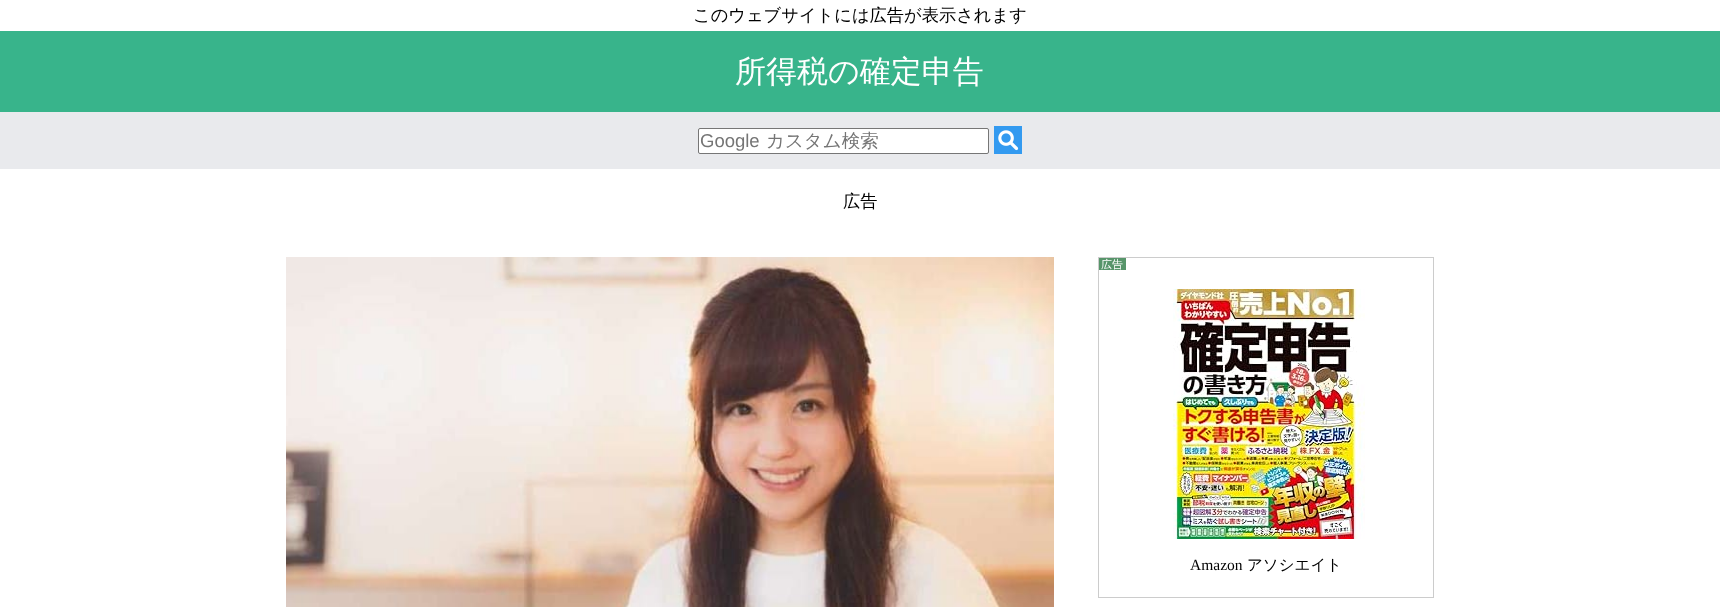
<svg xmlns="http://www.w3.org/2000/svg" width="1720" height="607">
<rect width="100%" height="100%" fill="#fff"/>
<text x="693" y="21" style="font-family:WenQuanYi Zen Hei;font-size:17.25px;font-weight:500;fill:#000">このウェブサイトには広告が表示されます</text>
<rect y="31" width="1720" height="81" fill="#38b48b"/>
<text x="735" y="82" style="font-family:WenQuanYi Zen Hei;font-size:31px;font-weight:500;fill:#fff">所得税の確定申告</text>
<rect y="112" width="1720" height="57" fill="#e9eaed"/>
<rect x="698.5" y="128.5" width="290" height="25" rx="1.5" fill="#fff" stroke="#767676"/>
<text x="700" y="147" style="font-family:Liberation Sans;font-size:18.5px;fill:#757575">Google</text>
<text x="766" y="147" style="font-family:WenQuanYi Zen Hei;font-size:18.5px;font-weight:500;fill:#757575">カスタム検索</text>
<image x="994" y="126" width="28" height="28" href="media/1.png"/>
<text x="843" y="207" style="font-family:WenQuanYi Zen Hei;font-size:17.25px;font-weight:500;fill:#000">広告</text>
<image x="286" y="257" width="768" height="350" href="media/2.png"/>
<rect x="1098.5" y="257.5" width="335" height="340" fill="none" stroke="#ccc"/>
<rect x="1099" y="258" width="27" height="12" fill="#57956a"/>
<text x="1101" y="268" style="font-family:WenQuanYi Zen Hei;font-size:11px;font-weight:500;fill:#fff">広告</text>
<image x="1173" y="289" width="192" height="250" href="media/3.png"/>
<text x="1190" y="570" style="font-family:Liberation Serif;font-size:15.5px;fill:#000">Amazon</text>
<text x="1247" y="570" style="font-family:WenQuanYi Zen Hei;font-size:15.5px;font-weight:500;fill:#000">アソシエイト</text>
</svg>
